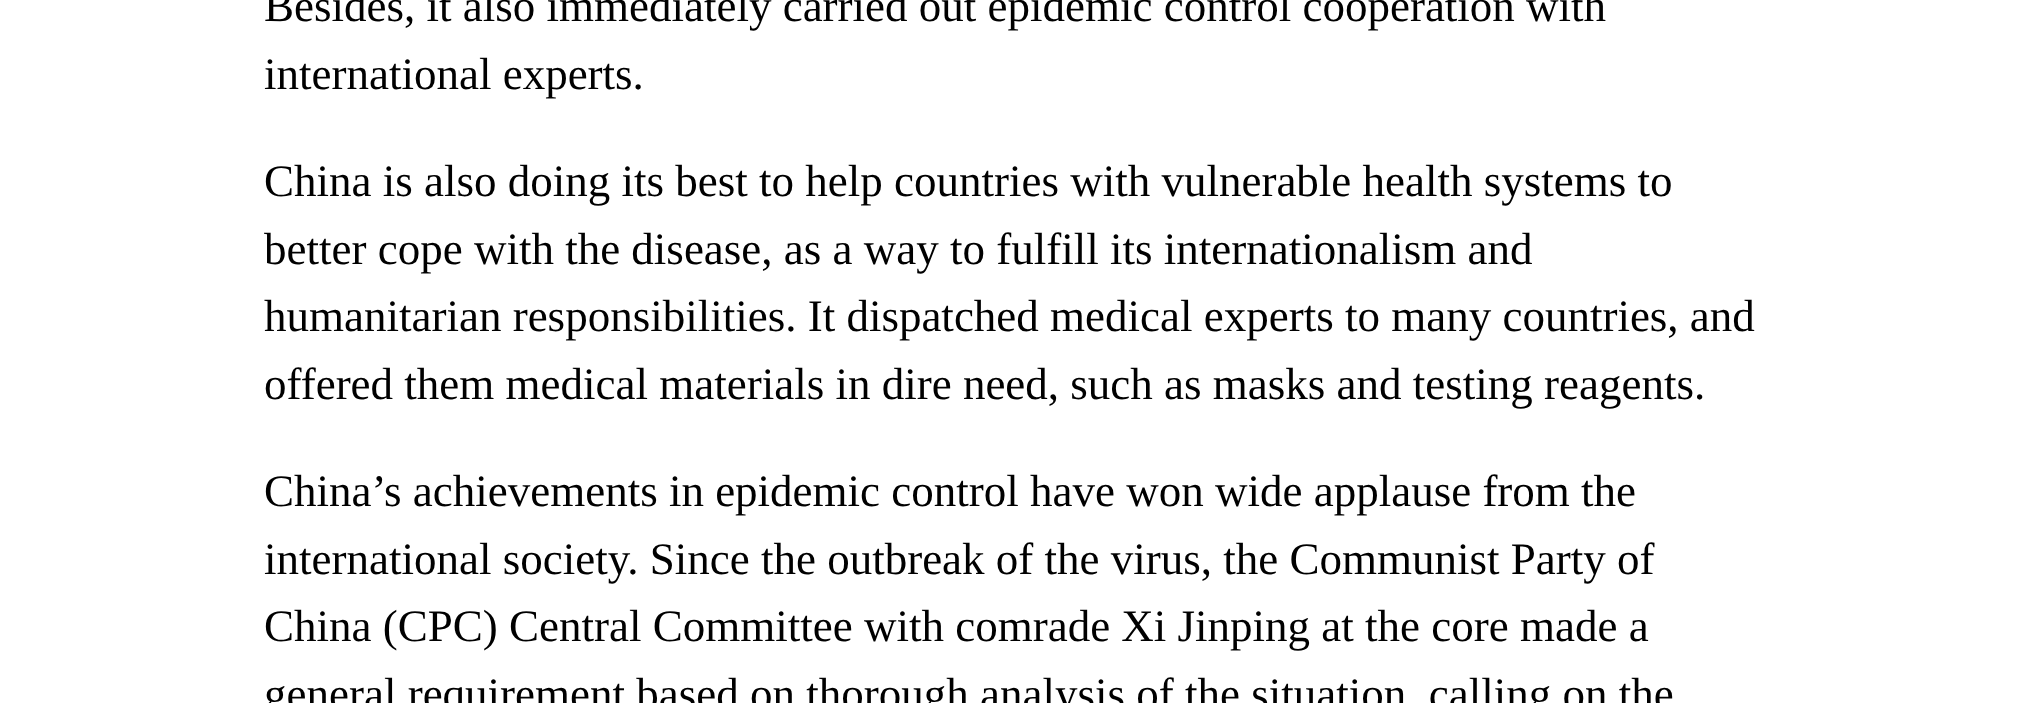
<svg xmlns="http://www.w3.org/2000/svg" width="2027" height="703">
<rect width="100%" height="100%" fill="#fff"/>
<text x="264" y="21" style="font-family:Liberation Serif;font-size:45px;fill:#000">Besides, it also immediately carried out epidemic control cooperation with</text>
<text x="264" y="89" style="font-family:Liberation Serif;font-size:45px;fill:#000">international experts.</text>
<text x="264" y="196" style="font-family:Liberation Serif;font-size:45px;fill:#000">China is also doing its best to help countries with vulnerable health systems to</text>
<text x="264" y="264" style="font-family:Liberation Serif;font-size:45px;fill:#000">better cope with the disease, as a way to fulfill its internationalism and</text>
<text x="264" y="331" style="font-family:Liberation Serif;font-size:45px;fill:#000">humanitarian responsibilities. It dispatched medical experts to many countries, and</text>
<text x="264" y="399" style="font-family:Liberation Serif;font-size:45px;fill:#000">offered them medical materials in dire need, such as masks and testing reagents.</text>
<text x="264" y="506" style="font-family:Liberation Serif;font-size:45px;fill:#000">China’s achievements in epidemic control have won wide applause from the</text>
<text x="264" y="574" style="font-family:Liberation Serif;font-size:45px;fill:#000">international society. Since the outbreak of the virus, the Communist Party of</text>
<text x="264" y="641" style="font-family:Liberation Serif;font-size:45px;fill:#000">China (CPC) Central Committee with comrade Xi Jinping at the core made a</text>
<text x="264" y="709" style="font-family:Liberation Serif;font-size:45px;fill:#000">general requirement based on thorough analysis of the situation, calling on the</text>
</svg>
